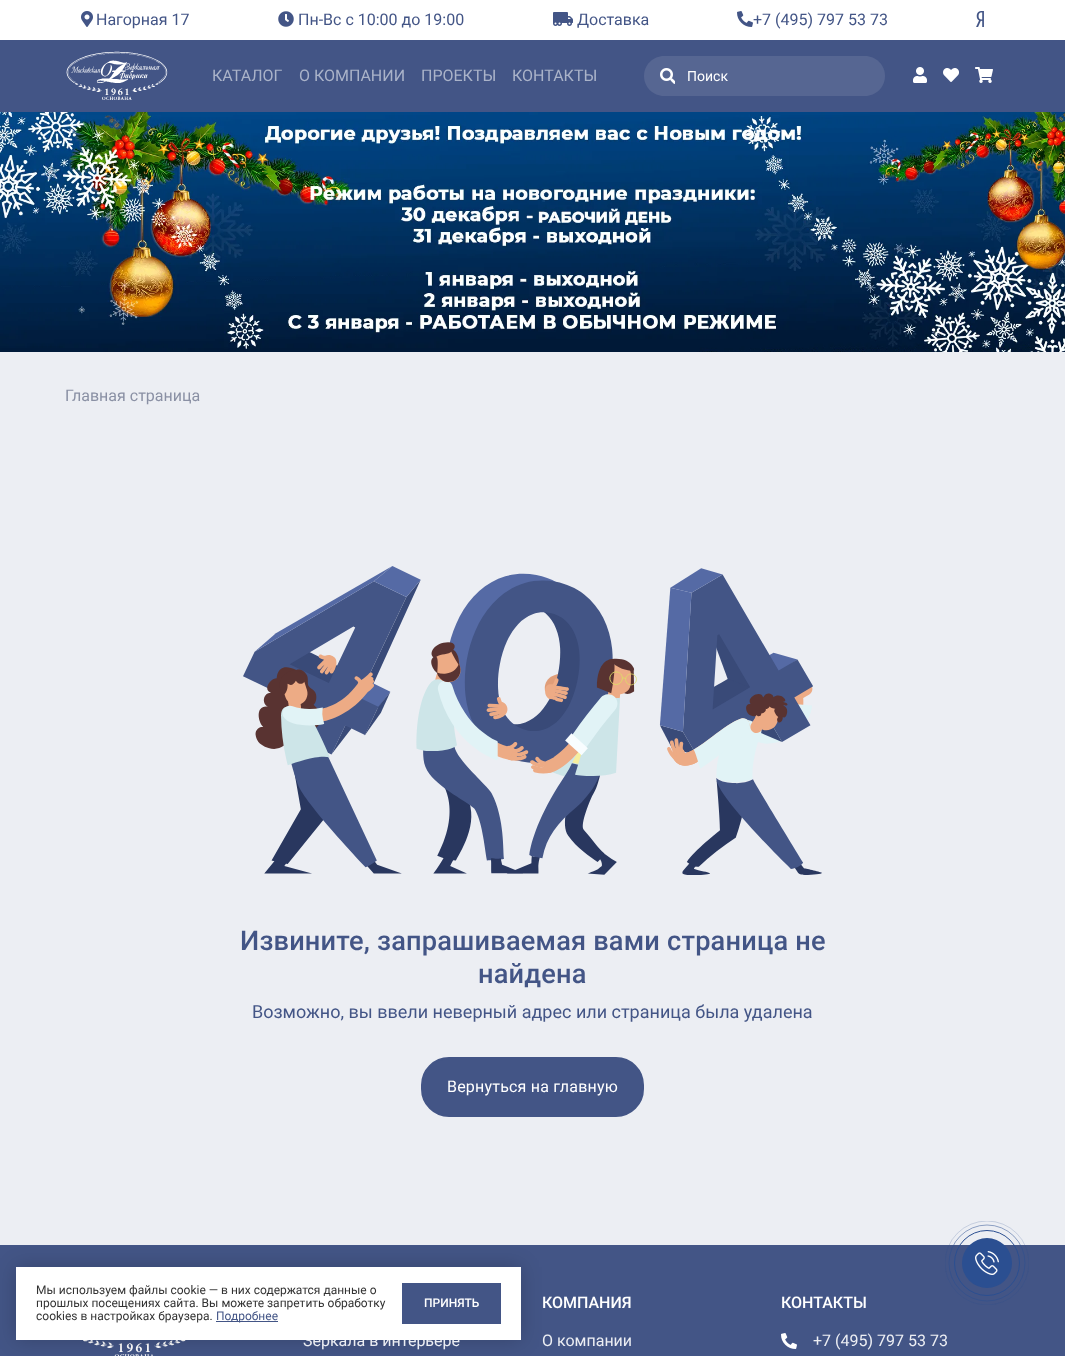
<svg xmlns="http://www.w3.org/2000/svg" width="1065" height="1356">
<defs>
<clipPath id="clip1"><rect x="945" y="1221" width="84" height="84"/></clipPath>
</defs>
<rect width="100%" height="100%" fill="#eceef3"/>
<rect width="1065" height="40" fill="#fff"/>
<image x="81" y="11" width="12" height="16" href="media/1.png"/>
<text x="96" y="25" style="font-family:Roboto;font-size:16px;fill:#435586">Нагорная 17</text>
<image x="278" y="11" width="16" height="16" href="media/2.png"/>
<text x="298" y="25" style="font-family:Roboto;font-size:16px;fill:#435586">Пн-Вс с 10:00 до 19:00</text>
<image x="553" y="12" width="20" height="14" href="media/3.png"/>
<text x="577" y="25" style="font-family:Roboto;font-size:16px;fill:#435586">Доставка</text>
<image x="737" y="11" width="16" height="16" href="media/4.png"/>
<text x="753" y="25" style="font-family:Roboto;font-size:16px;fill:#435586">+7 (495) 797 53 73</text>
<image x="976" y="11" width="8" height="16" href="media/5.png"/>
<rect y="40" width="1065" height="72" fill="#435586"/>
<image x="66" y="51" width="102" height="49" href="media/6.png"/>
<text x="212" y="81" style="font-family:Roboto;font-size:16px;fill:#aab3c9">КАТАЛОГ</text>
<text x="299" y="81" style="font-family:Roboto;font-size:16px;fill:#aab3c9">О КОМПАНИИ</text>
<text x="421" y="81" style="font-family:Roboto;font-size:16px;fill:#aab3c9">ПРОЕКТЫ</text>
<text x="512" y="81" style="font-family:Roboto;font-size:16px;fill:#aab3c9">КОНТАКТЫ</text>
<path d="M664 56h12v40h-12c-11 0-20-9-20-20c0-11 9-20 20-20z" fill="#566692"/>
<image x="660" y="68" width="15" height="16" href="media/7.png"/>
<path d="M675 56h190c11 0 20 9 20 20c0 11-9 20-20 20h-190z" fill="#566692"/>
<text x="687" y="81" style="font-family:Roboto;font-size:14px;fill:#fff">Поиск</text>
<image x="913" y="67" width="14" height="16" href="media/8.png"/>
<image x="943" y="68" width="16" height="14" href="media/9.png"/>
<image x="975" y="67" width="18" height="16" href="media/10.png"/>
<image x="0" y="112" width="1065" height="240" href="media/11.png"/>
<text x="65" y="401" style="font-family:Roboto;font-size:16px;fill:#8a90a4">Главная страница</text>
<image x="243" y="566" width="579" height="309" href="media/12.png"/>
<text x="240" y="950" style="font-family:Roboto;font-size:27.2px;font-weight:500;letter-spacing:0.2px;fill:#435586">Извините, запрашиваемая вами страница не</text>
<text x="478" y="983" style="font-family:Roboto;font-size:27.2px;font-weight:500;letter-spacing:0.2px;fill:#435586">найдена</text>
<text x="252" y="1018" style="font-family:Roboto;font-size:18px;fill:#435586">Возможно, вы ввели неверный адрес или страница была удалена</text>
<rect x="422" y="1058" width="221" height="58" rx="27" fill="#435586" stroke="#435586" stroke-width="2"/>
<text x="447" y="1092" style="font-family:Roboto;font-size:16px;letter-spacing:0.2px;fill:#fff">Вернуться на главную</text>
<rect y="1245" width="1065" height="111" fill="#435586"/>
<image x="83" y="1340" width="103" height="16" href="media/13.png"/>
<rect x="16" y="1267" width="505" height="73" fill="#00000033" filter="blur(10px)"/>
<text x="303" y="1346" style="font-family:Roboto;font-size:16px;fill:#eceef3">Зеркала в интерьере</text>
<rect x="16" y="1267" width="505" height="73" fill="#fff"/>
<text x="36" y="1294" style="font-family:Roboto;font-size:12px;fill:#333">Мы используем файлы cookie — в них содержатся данные о</text>
<text x="36" y="1307" style="font-family:Roboto;font-size:12px;fill:#333">прошлых посещениях сайта. Вы можете запретить обработку</text>
<text x="36" y="1320" style="font-family:Roboto;font-size:12px;fill:#333">сookies в настройках браузера.</text>
<rect x="216" y="1321" width="62" height="1" fill="#435586"/>
<text x="216" y="1320" style="font-family:Roboto;font-size:12px;fill:#435586">Подробнее</text>
<rect x="402" y="1283" width="99" height="41" fill="#435586"/>
<text x="424" y="1307" style="font-family:Roboto;font-size:12px;font-weight:500;fill:#fff">ПРИНЯТЬ</text>
<text x="542" y="1308" style="font-family:Roboto;font-size:16px;font-weight:500;fill:#fff">КОМПАНИЯ</text>
<text x="542" y="1346" style="font-family:Roboto;font-size:16px;fill:#eceef3">О компании</text>
<text x="781" y="1308" style="font-family:Roboto;font-size:16px;font-weight:500;fill:#fff">КОНТАКТЫ</text>
<image x="781" y="1333" width="16" height="16" href="media/14.png"/>
<text x="813" y="1346" style="font-family:Roboto;font-size:16px;fill:#eceef3">+7 (495) 797 53 73</text>
<circle cx="987" cy="1263" r="25" fill="#2b4f91"/>
<image x="975" y="1251" width="24" height="24" href="media/15.png"/>
<g clip-path="url(#clip1)">
<circle cx="987" cy="1263" r="42" fill="none" stroke="#2b4f91" stroke-width="0.2"/>
</g>
<circle cx="987" cy="1263" r="32.5" fill="none" stroke="#2b4f91"/>
<circle cx="987" cy="1263" r="38" fill="none" stroke="#2b4f91" stroke-width="0.5"/>
</svg>
